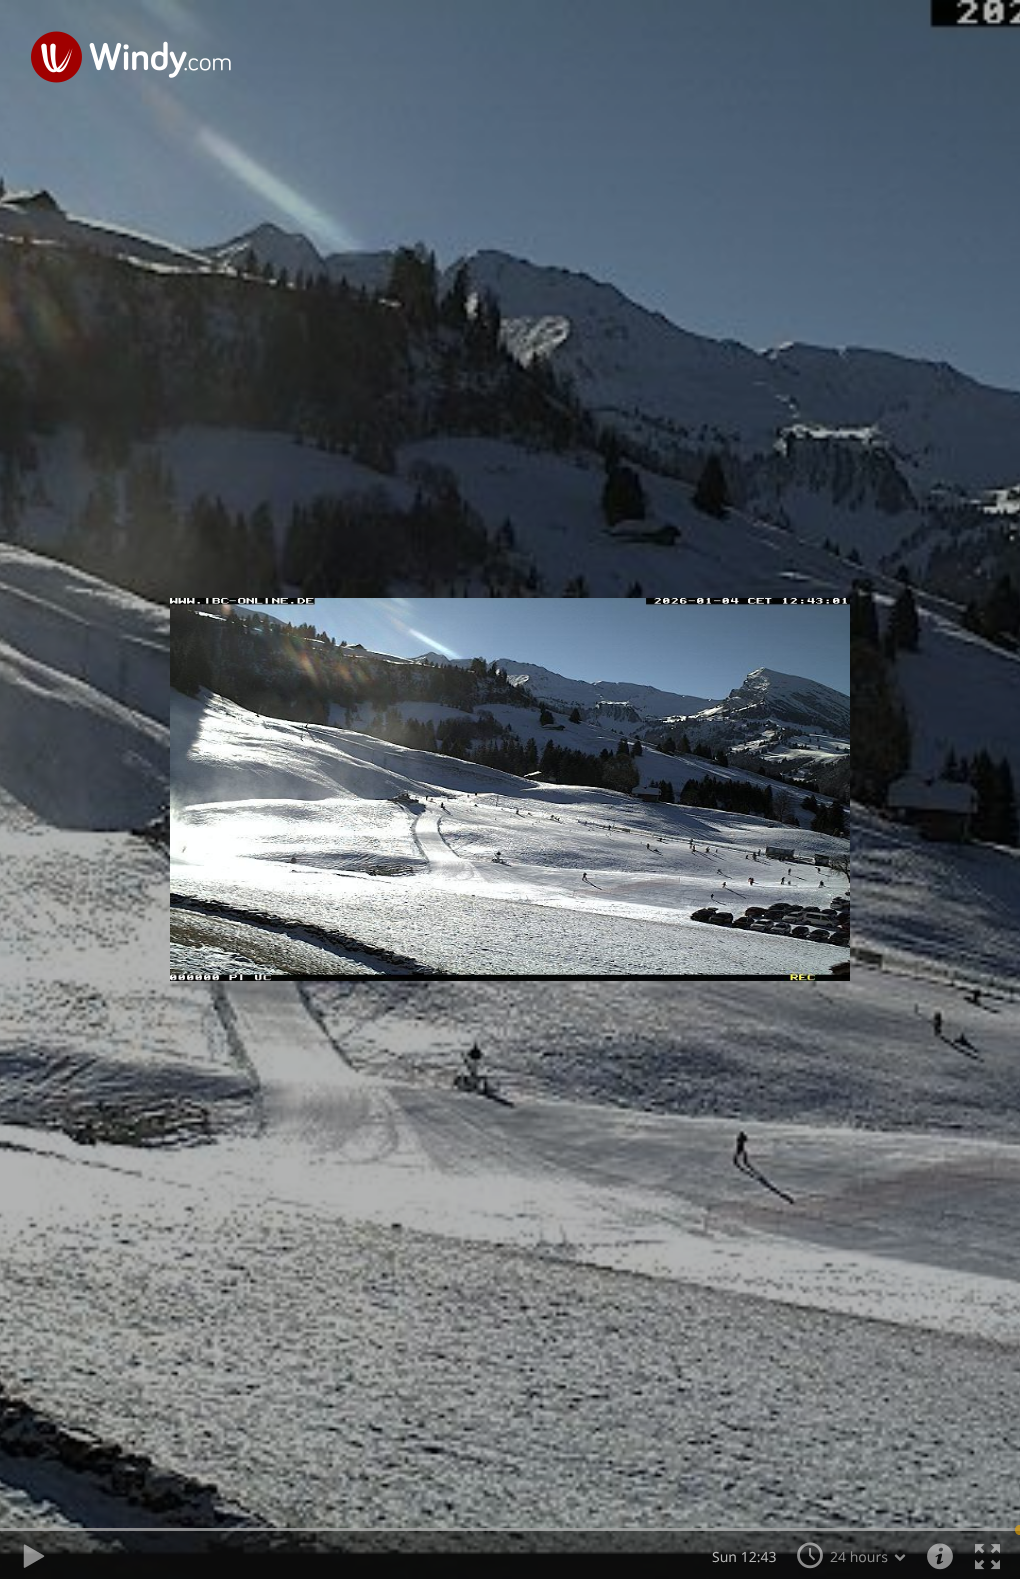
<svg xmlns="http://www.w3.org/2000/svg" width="1020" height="1579">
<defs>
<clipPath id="clip1"><path d="M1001 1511h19v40h-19zm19 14c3 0 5 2 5 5c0 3-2 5-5 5c-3 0-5-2-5-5c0-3 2-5 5-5z" clip-rule="evenodd"/></clipPath>
</defs>
<rect width="100%" height="100%" fill="#fff"/>
<image x="0" y="0" width="1020" height="1579" href="media/1.png"/>
<image x="31" y="31" width="200" height="52" href="media/2.png"/>
<image x="170" y="598" width="680" height="383" href="media/3.png"/>
<rect y="1528" width="1020" height="51" fill="#1414148f"/>
<rect y="1528" width="1020" height="3" fill="#dcdcdc96"/>
<g clip-path="url(#clip1)">
<rect x="1016" y="1526" width="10" height="10" rx="5" fill="#000000b3" filter="blur(4.5px)"/>
</g>
<path d="M1020 1525v10c-3 0-5-2-5-5c0-3 2-5 5-5z" fill="#d49500b3"/>
<image x="23" y="1544" width="22" height="24" href="media/4.png"/>
<text x="712" y="1562" style="font-family:Noto Sans;font-size:14px;fill:#b8b8b8">Sun 12:43</text>
<image x="797" y="1542" width="26" height="27" href="media/5.png"/>
<text x="830" y="1562" style="font-family:Noto Sans;font-size:14px;fill:#8d8d8d">24 hours</text>
<image x="894" y="1554" width="12" height="7" href="media/6.png"/>
<image x="927" y="1543" width="26" height="27" href="media/7.png"/>
<image x="975" y="1544" width="25" height="26" href="media/8.png"/>
</svg>
